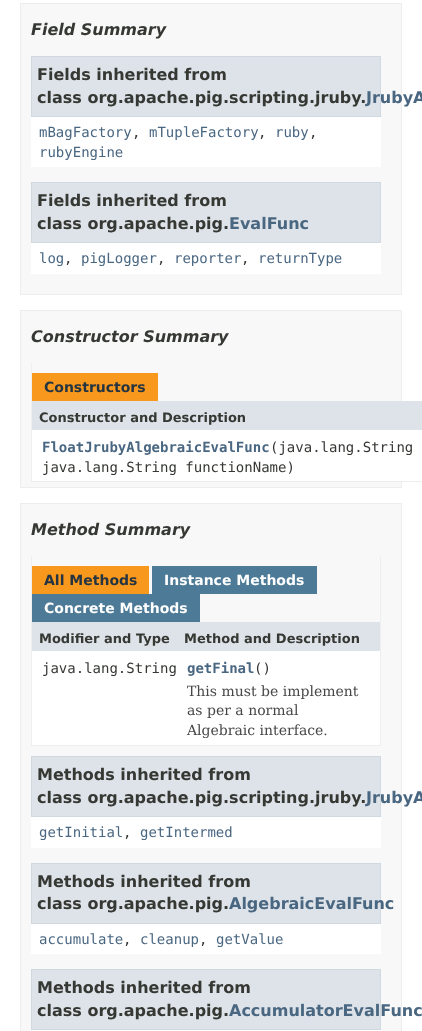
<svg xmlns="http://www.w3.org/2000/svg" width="422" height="1031">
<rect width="100%" height="100%" fill="#fff"/>
<rect x="20.5" y="3.5" width="381" height="291" fill="#f8f8f8" stroke="#ededed"/>
<text x="31" y="35" style="font-family:DejaVu Sans;font-size:16px;font-weight:bold;font-style:italic;fill:#353833">Field Summary</text>
<rect x="31" y="117" width="350" height="50" fill="#fff"/>
<rect x="31.5" y="56.5" width="349" height="60" fill="#dee3e9" stroke="#d0d9e0"/>
<text x="37" y="80" style="font-family:DejaVu Sans;font-size:16px;font-weight:bold;fill:#353833">Fields inherited from</text>
<text x="37" y="103" style="font-family:DejaVu Sans;font-size:16px;font-weight:bold;fill:#353833">class org.apache.pig.scripting.jruby.</text>
<text x="366" y="103" style="font-family:DejaVu Sans;font-size:16px;font-weight:bold;fill:#4a6782">JrubyA</text>
<text x="39" y="137" style="font-family:DejaVu Sans Mono;font-size:14px;fill:#4a6782">mBagFactory</text>
<text x="132" y="137" style="font-family:DejaVu Sans Mono;font-size:14px;fill:#353833">,</text>
<text x="149" y="137" style="font-family:DejaVu Sans Mono;font-size:14px;fill:#4a6782">mTupleFactory</text>
<text x="258" y="137" style="font-family:DejaVu Sans Mono;font-size:14px;fill:#353833">,</text>
<text x="275" y="137" style="font-family:DejaVu Sans Mono;font-size:14px;fill:#4a6782">ruby</text>
<text x="309" y="137" style="font-family:DejaVu Sans Mono;font-size:14px;fill:#353833">,</text>
<text x="39" y="157" style="font-family:DejaVu Sans Mono;font-size:14px;fill:#4a6782">rubyEngine</text>
<rect x="31" y="243" width="350" height="31" fill="#fff"/>
<rect x="31.5" y="182.5" width="349" height="60" fill="#dee3e9" stroke="#d0d9e0"/>
<text x="37" y="206" style="font-family:DejaVu Sans;font-size:16px;font-weight:bold;fill:#353833">Fields inherited from</text>
<text x="37" y="229" style="font-family:DejaVu Sans;font-size:16px;font-weight:bold;fill:#353833">class org.apache.pig.</text>
<text x="229" y="229" style="font-family:DejaVu Sans;font-size:16px;font-weight:bold;fill:#4a6782">EvalFunc</text>
<text x="39" y="263" style="font-family:DejaVu Sans Mono;font-size:14px;fill:#4a6782">log</text>
<text x="64" y="263" style="font-family:DejaVu Sans Mono;font-size:14px;fill:#353833">,</text>
<text x="81" y="263" style="font-family:DejaVu Sans Mono;font-size:14px;fill:#4a6782">pigLogger</text>
<text x="157" y="263" style="font-family:DejaVu Sans Mono;font-size:14px;fill:#353833">,</text>
<text x="174" y="263" style="font-family:DejaVu Sans Mono;font-size:14px;fill:#4a6782">reporter</text>
<text x="241" y="263" style="font-family:DejaVu Sans Mono;font-size:14px;fill:#353833">,</text>
<text x="258" y="263" style="font-family:DejaVu Sans Mono;font-size:14px;fill:#4a6782">returnType</text>
<rect x="20.5" y="310.5" width="381" height="177" fill="#f8f8f8" stroke="#ededed"/>
<text x="31" y="342" style="font-family:DejaVu Sans;font-size:16px;font-weight:bold;font-style:italic;fill:#353833">Constructor Summary</text>
<rect x="31" y="481" width="391" height="1" fill="#eee"/>
<rect x="31" y="363" width="1" height="119" fill="#eee"/>
<rect x="32" y="373" width="126" height="28" fill="#f8981d"/>
<text x="44" y="392" style="font-family:DejaVu Sans;font-size:14px;font-weight:bold;fill:#253441">Constructors</text>
<rect x="32" y="401" width="390" height="29" fill="#dee3e9"/>
<text x="39" y="422" style="font-family:DejaVu Sans;font-size:13px;font-weight:bold;fill:#353833">Constructor and Description</text>
<rect x="32" y="430" width="370" height="51" fill="#fff"/>
<text x="42" y="452" style="font-family:DejaVu Sans Mono;font-size:14px;font-weight:bold;fill:#4a6782">FloatJrubyAlgebraicEvalFunc</text>
<text x="270" y="452" style="font-family:DejaVu Sans Mono;font-size:14px;fill:#353833">(java.lang.String</text>
<text x="42" y="472" style="font-family:DejaVu Sans Mono;font-size:14px;fill:#353833">java.lang.String functionName)</text>
<rect x="20.5" y="503.5" width="381" height="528" fill="#f8f8f8" stroke="#ededed"/>
<text x="31" y="535" style="font-family:DejaVu Sans;font-size:16px;font-weight:bold;font-style:italic;fill:#353833">Method Summary</text>
<rect x="380" y="556" width="1" height="190" fill="#eee"/>
<rect x="31" y="745" width="350" height="1" fill="#eee"/>
<rect x="31" y="556" width="1" height="190" fill="#eee"/>
<rect x="32" y="566" width="117" height="28" fill="#f8981d"/>
<text x="44" y="585" style="font-family:DejaVu Sans;font-size:14px;font-weight:bold;fill:#253441">All Methods</text>
<rect x="152" y="566" width="165" height="28" fill="#4d7a97"/>
<text x="164" y="585" style="font-family:DejaVu Sans;font-size:14px;font-weight:bold;fill:#fff">Instance Methods</text>
<rect x="32" y="594" width="168" height="28" fill="#4d7a97"/>
<text x="44" y="613" style="font-family:DejaVu Sans;font-size:14px;font-weight:bold;fill:#fff">Concrete Methods</text>
<rect x="32" y="622" width="348" height="29" fill="#dee3e9"/>
<text x="39" y="643" style="font-family:DejaVu Sans;font-size:13px;font-weight:bold;fill:#353833">Modifier and Type</text>
<text x="184" y="643" style="font-family:DejaVu Sans;font-size:13px;font-weight:bold;fill:#353833">Method and Description</text>
<rect x="32" y="651" width="348" height="94" fill="#fff"/>
<text x="42" y="673" style="font-family:DejaVu Sans Mono;font-size:14px;fill:#353833">java.lang.String</text>
<text x="187" y="673" style="font-family:DejaVu Sans Mono;font-size:14px;font-weight:bold;fill:#4a6782">getFinal</text>
<text x="254" y="673" style="font-family:DejaVu Sans Mono;font-size:14px;fill:#353833">()</text>
<text x="187" y="696" style="font-family:DejaVu Serif;font-size:14px;fill:#474747">This must be implement</text>
<text x="187" y="715" style="font-family:DejaVu Serif;font-size:14px;fill:#474747">as per a normal</text>
<text x="187" y="735" style="font-family:DejaVu Serif;font-size:14px;fill:#474747">Algebraic interface.</text>
<rect x="31" y="817" width="350" height="31" fill="#fff"/>
<rect x="31.5" y="756.5" width="349" height="60" fill="#dee3e9" stroke="#d0d9e0"/>
<text x="37" y="780" style="font-family:DejaVu Sans;font-size:16px;font-weight:bold;fill:#353833">Methods inherited from</text>
<text x="37" y="803" style="font-family:DejaVu Sans;font-size:16px;font-weight:bold;fill:#353833">class org.apache.pig.scripting.jruby.</text>
<text x="366" y="803" style="font-family:DejaVu Sans;font-size:16px;font-weight:bold;fill:#4a6782">JrubyA</text>
<text x="39" y="837" style="font-family:DejaVu Sans Mono;font-size:14px;fill:#4a6782">getInitial</text>
<text x="123" y="837" style="font-family:DejaVu Sans Mono;font-size:14px;fill:#353833">,</text>
<text x="140" y="837" style="font-family:DejaVu Sans Mono;font-size:14px;fill:#4a6782">getIntermed</text>
<rect x="31" y="924" width="350" height="30" fill="#fff"/>
<rect x="31.5" y="863.5" width="349" height="60" fill="#dee3e9" stroke="#d0d9e0"/>
<text x="37" y="887" style="font-family:DejaVu Sans;font-size:16px;font-weight:bold;fill:#353833">Methods inherited from</text>
<text x="37" y="909" style="font-family:DejaVu Sans;font-size:16px;font-weight:bold;fill:#353833">class org.apache.pig.</text>
<text x="229" y="909" style="font-family:DejaVu Sans;font-size:16px;font-weight:bold;fill:#4a6782">AlgebraicEvalFunc</text>
<text x="39" y="944" style="font-family:DejaVu Sans Mono;font-size:14px;fill:#4a6782">accumulate</text>
<text x="123" y="944" style="font-family:DejaVu Sans Mono;font-size:14px;fill:#353833">,</text>
<text x="140" y="944" style="font-family:DejaVu Sans Mono;font-size:14px;fill:#4a6782">cleanup</text>
<text x="199" y="944" style="font-family:DejaVu Sans Mono;font-size:14px;fill:#353833">,</text>
<text x="216" y="944" style="font-family:DejaVu Sans Mono;font-size:14px;fill:#4a6782">getValue</text>
<rect x="31" y="1030" width="350" height="1" fill="#fff"/>
<rect x="31.5" y="969.5" width="349" height="60" fill="#dee3e9" stroke="#d0d9e0"/>
<text x="37" y="993" style="font-family:DejaVu Sans;font-size:16px;font-weight:bold;fill:#353833">Methods inherited from</text>
<text x="37" y="1016" style="font-family:DejaVu Sans;font-size:16px;font-weight:bold;fill:#353833">class org.apache.pig.</text>
<text x="229" y="1016" style="font-family:DejaVu Sans;font-size:16px;font-weight:bold;fill:#4a6782">AccumulatorEvalFunc</text>
</svg>
